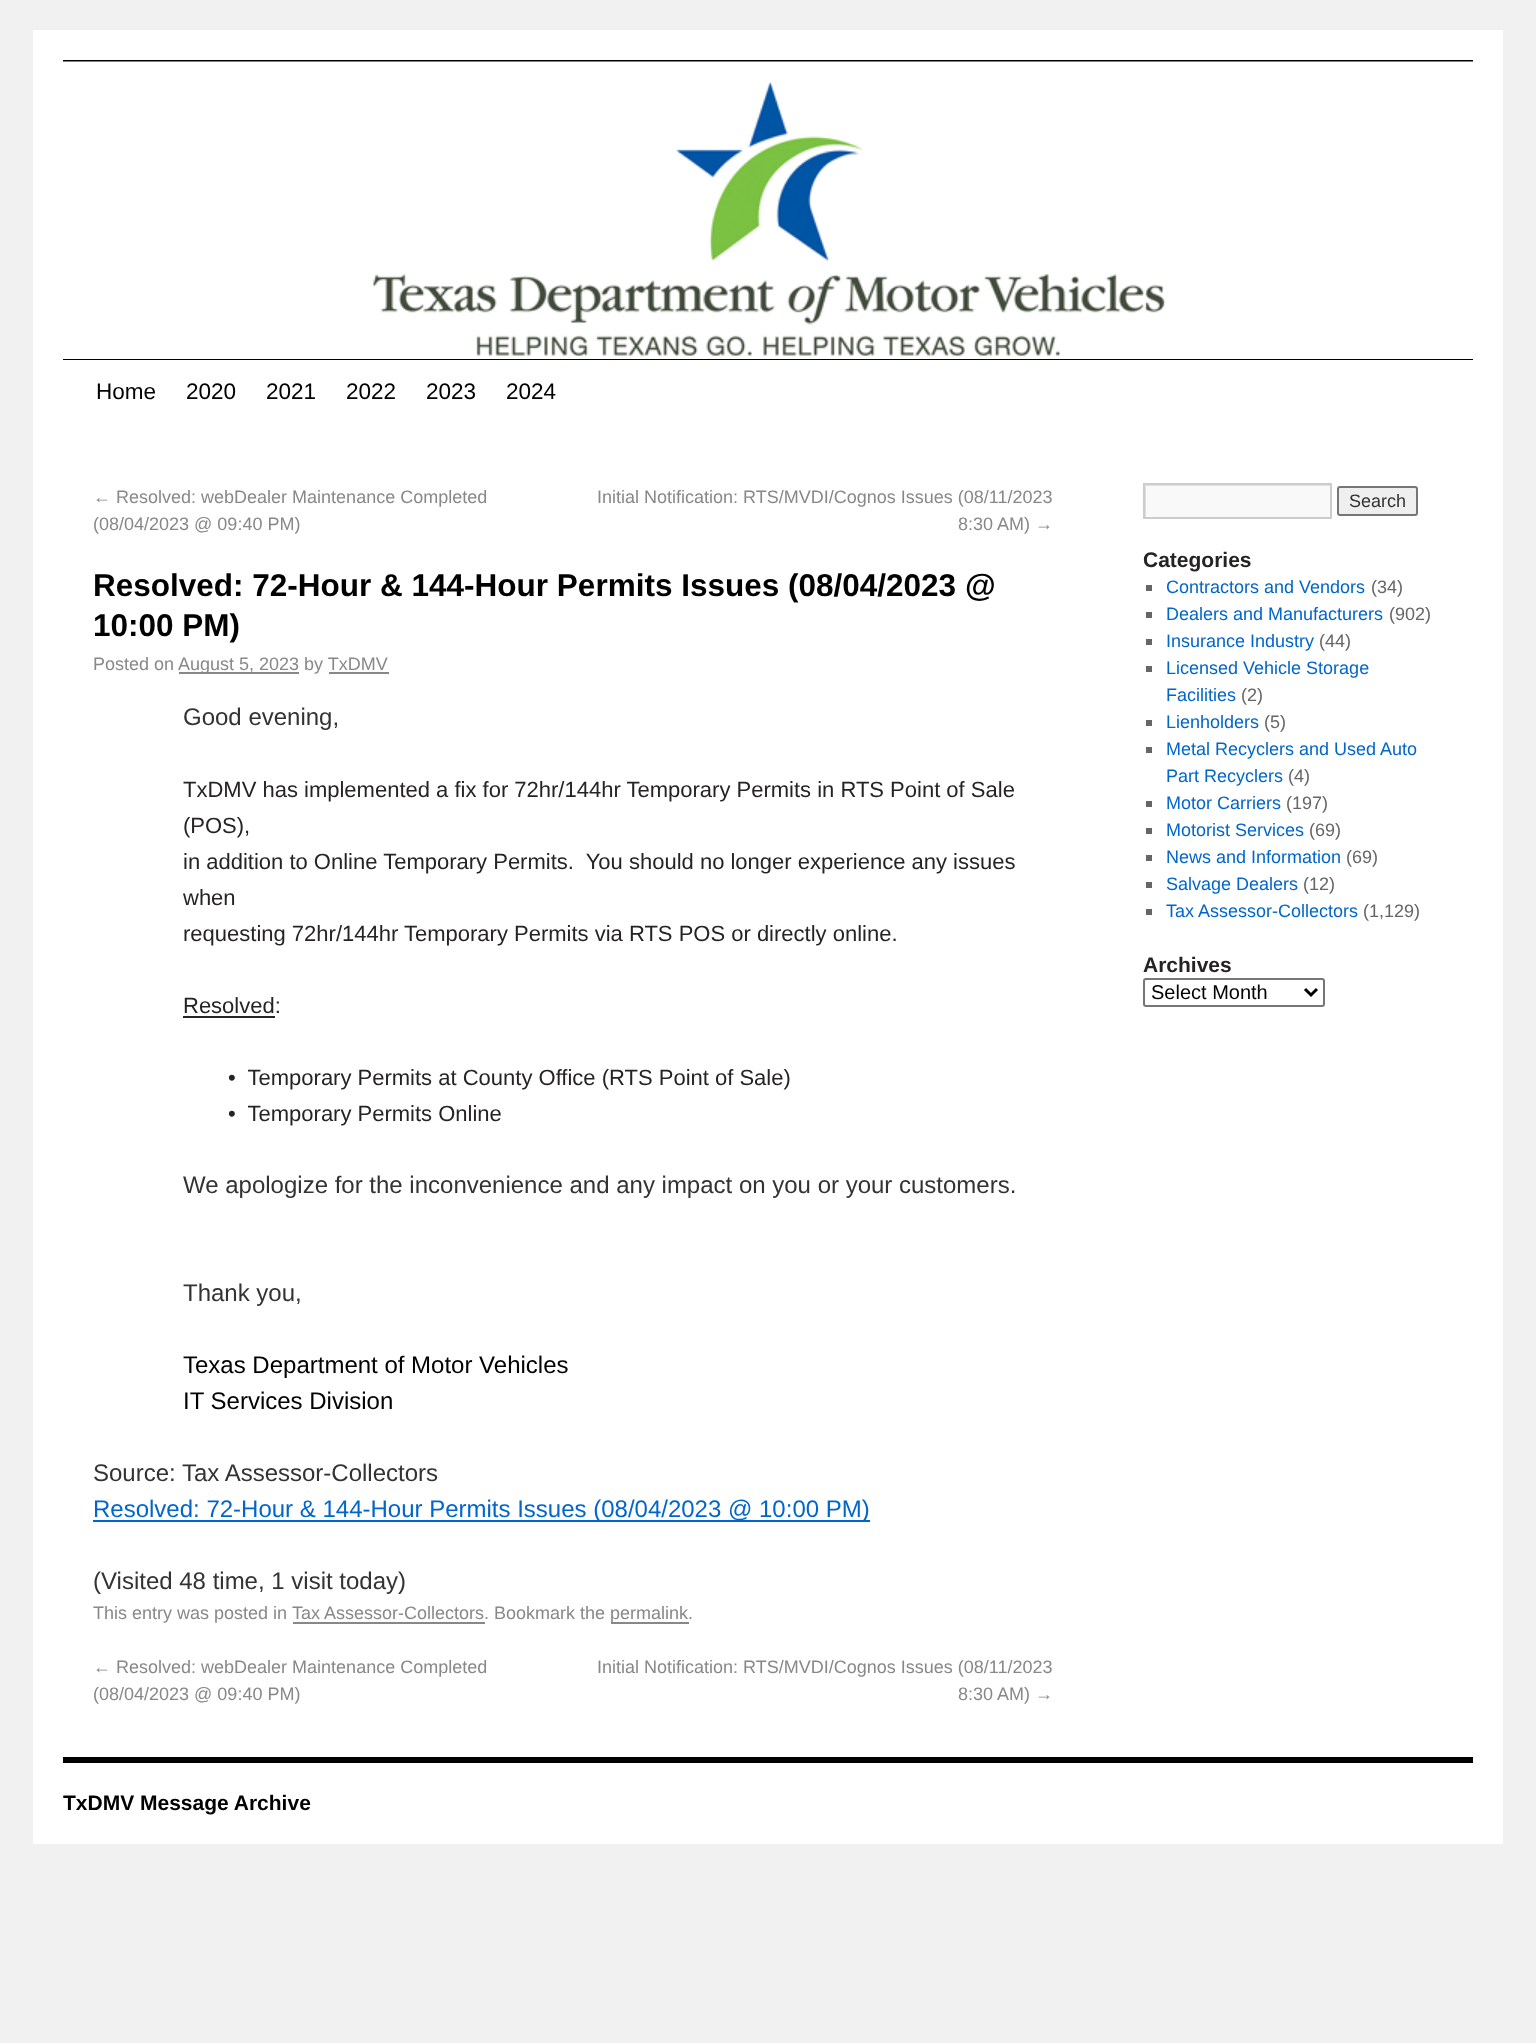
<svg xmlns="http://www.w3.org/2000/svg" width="1536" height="2043">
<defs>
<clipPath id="clip1"><rect x="1145" y="485" width="186" height="33"/></clipPath>
</defs>
<rect width="100%" height="100%" fill="#f1f1f1"/>
<rect x="33" y="30" width="1470" height="1814" fill="#fff"/>
<rect x="63" y="60" width="1410" height="2" fill="#000"/>
<rect x="63" y="359" width="1410" height="1" fill="#000"/>
<image x="63" y="61" width="1410" height="295" href="media/1.png"/>
<text x="96" y="399" style="font-family:Liberation Sans;font-size:22.5px;fill:#000">Home</text>
<text x="186" y="399" style="font-family:Liberation Sans;font-size:22.5px;fill:#000">2020</text>
<text x="266" y="399" style="font-family:Liberation Sans;font-size:22.5px;fill:#000">2021</text>
<text x="346" y="399" style="font-family:Liberation Sans;font-size:22.5px;fill:#000">2022</text>
<text x="426" y="399" style="font-family:Liberation Sans;font-size:22.5px;fill:#000">2023</text>
<text x="506" y="399" style="font-family:Liberation Sans;font-size:22.5px;fill:#000">2024</text>
<text x="93" y="503" style="font-family:Liberation Sans;font-size:18px;fill:#888">← Resolved: webDealer Maintenance Completed</text>
<text x="93" y="530" style="font-family:Liberation Sans;font-size:18px;fill:#888">(08/04/2023 @ 09:40 PM)</text>
<text x="597" y="503" style="font-family:Liberation Sans;font-size:18px;fill:#888">Initial Notification: RTS/MVDI/Cognos Issues (08/11/2023</text>
<text x="958" y="530" style="font-family:Liberation Sans;font-size:18px;fill:#888">8:30 AM) →</text>
<text x="93" y="596" style="font-family:Liberation Sans;font-size:31.5px;font-weight:bold;fill:#000">Resolved: 72-Hour &amp; 144-Hour Permits Issues (08/04/2023 @</text>
<text x="93" y="636" style="font-family:Liberation Sans;font-size:31.5px;font-weight:bold;fill:#000">10:00 PM)</text>
<text x="93" y="670" style="font-family:Liberation Sans;font-size:18px;fill:#888">Posted on</text>
<rect x="179" y="672" width="120" height="2" fill="#888"/>
<text x="178" y="670" style="font-family:Liberation Sans;font-size:18px;fill:#888">August 5, 2023 by TxDMV</text>
<rect x="329" y="672" width="60" height="2" fill="#888"/>
<text x="183" y="725" style="font-family:Liberation Sans;font-size:24px;fill:#333">Good evening,</text>
<text x="183" y="797" style="font-family:Liberation Sans;font-size:22px;fill:#252423">TxDMV has implemented a fix for 72hr/144hr Temporary Permits in RTS Point of Sale</text>
<text x="183" y="833" style="font-family:Liberation Sans;font-size:22px;fill:#252423">(POS),</text>
<text x="183" y="869" style="font-family:Liberation Sans;font-size:22px;fill:#252423" xml:space="preserve">in addition to Online Temporary Permits.  You should no longer experience any issues</text>
<text x="183" y="905" style="font-family:Liberation Sans;font-size:22px;fill:#252423">when</text>
<text x="183" y="941" style="font-family:Liberation Sans;font-size:22px;fill:#252423">requesting 72hr/144hr Temporary Permits via RTS POS or directly online.</text>
<text x="183" y="1013" style="font-family:Liberation Sans;font-size:22px;fill:#252423">Resolved:</text>
<rect x="183" y="1016" width="92" height="2" fill="#252423"/>
<text x="228" y="1085" style="font-family:Liberation Sans;font-size:22px;fill:#252423" xml:space="preserve">•  Temporary Permits at County Office (RTS Point of Sale)</text>
<text x="228" y="1121" style="font-family:Liberation Sans;font-size:22px;fill:#252423" xml:space="preserve">•  Temporary Permits Online</text>
<text x="183" y="1193" style="font-family:Liberation Sans;font-size:24px;fill:#333">We apologize for the inconvenience and any impact on you or your customers.</text>
<text x="183" y="1301" style="font-family:Liberation Sans;font-size:24px;fill:#333">Thank you,</text>
<text x="183" y="1373" style="font-family:Liberation Sans;font-size:24px;fill:#000">Texas Department of Motor Vehicles</text>
<text x="183" y="1409" style="font-family:Liberation Sans;font-size:24px;fill:#000">IT Services Division</text>
<text x="93" y="1481" style="font-family:Liberation Sans;font-size:24px;fill:#333">Source: Tax Assessor-Collectors</text>
<rect x="93" y="1520" width="777" height="2" fill="#06c"/>
<text x="93" y="1517" style="font-family:Liberation Sans;font-size:24px;fill:#06c">Resolved: 72-Hour &amp; 144-Hour Permits Issues (08/04/2023 @ 10:00 PM)</text>
<text x="93" y="1589" style="font-family:Liberation Sans;font-size:24px;fill:#333">(Visited 48 time, 1 visit today)</text>
<text x="93" y="1619" style="font-family:Liberation Sans;font-size:18px;fill:#888">This entry was posted in</text>
<text x="292" y="1619" style="font-family:Liberation Sans;font-size:18px;fill:#888">Tax Assessor-Collectors. Bookmark the</text>
<rect x="293" y="1622" width="192" height="2" fill="#888"/>
<rect x="611" y="1622" width="78" height="2" fill="#888"/>
<text x="610" y="1619" style="font-family:Liberation Sans;font-size:18px;fill:#888">permalink.</text>
<text x="93" y="1673" style="font-family:Liberation Sans;font-size:18px;fill:#888">← Resolved: webDealer Maintenance Completed</text>
<text x="93" y="1700" style="font-family:Liberation Sans;font-size:18px;fill:#888">(08/04/2023 @ 09:40 PM)</text>
<text x="597" y="1673" style="font-family:Liberation Sans;font-size:18px;fill:#888">Initial Notification: RTS/MVDI/Cognos Issues (08/11/2023</text>
<text x="958" y="1700" style="font-family:Liberation Sans;font-size:18px;fill:#888">8:30 AM) →</text>
<rect x="1146" y="486" width="184" height="31" fill="#f9f9f9"/>
<g clip-path="url(#clip1)">
<path d="M996 336h483v330h-483zm150 150h186v33h-186z" fill="#e0e0e0" fill-rule="evenodd"/>
</g>
<rect x="1144" y="484" width="187" height="34" fill="none" stroke="#ccc" stroke-width="2"/>
<rect x="1338" y="487" width="79" height="28" rx="2" fill="#efefef" stroke="#767676" stroke-width="2"/>
<text x="1349" y="507" style="font-family:Liberation Sans;font-size:18px;fill:#333">Search</text>
<text x="1143" y="567" style="font-family:Liberation Sans;font-size:21px;font-weight:bold;fill:#252423">Categories</text>
<rect x="1146" y="585" width="6" height="6" fill="#666"/>
<text x="1166" y="593" style="font-family:Liberation Sans;font-size:18px;fill:#06c">Contractors and Vendors</text>
<text x="1371" y="593" style="font-family:Liberation Sans;font-size:18px;fill:#666">(34)</text>
<rect x="1146" y="612" width="6" height="6" fill="#666"/>
<text x="1166" y="620" style="font-family:Liberation Sans;font-size:18px;fill:#06c">Dealers and Manufacturers</text>
<text x="1389" y="620" style="font-family:Liberation Sans;font-size:18px;fill:#666">(902)</text>
<rect x="1146" y="639" width="6" height="6" fill="#666"/>
<text x="1166" y="647" style="font-family:Liberation Sans;font-size:18px;fill:#06c">Insurance Industry</text>
<text x="1319" y="647" style="font-family:Liberation Sans;font-size:18px;fill:#666">(44)</text>
<rect x="1146" y="666" width="6" height="6" fill="#666"/>
<text x="1166" y="674" style="font-family:Liberation Sans;font-size:18px;fill:#06c">Licensed Vehicle Storage</text>
<text x="1166" y="701" style="font-family:Liberation Sans;font-size:18px;fill:#06c">Facilities</text>
<text x="1241" y="701" style="font-family:Liberation Sans;font-size:18px;fill:#666">(2)</text>
<rect x="1146" y="720" width="6" height="6" fill="#666"/>
<text x="1166" y="728" style="font-family:Liberation Sans;font-size:18px;fill:#06c">Lienholders</text>
<text x="1264" y="728" style="font-family:Liberation Sans;font-size:18px;fill:#666">(5)</text>
<rect x="1146" y="747" width="6" height="6" fill="#666"/>
<text x="1166" y="755" style="font-family:Liberation Sans;font-size:18px;fill:#06c">Metal Recyclers and Used Auto</text>
<text x="1166" y="782" style="font-family:Liberation Sans;font-size:18px;fill:#06c">Part Recyclers</text>
<text x="1288" y="782" style="font-family:Liberation Sans;font-size:18px;fill:#666">(4)</text>
<rect x="1146" y="801" width="6" height="6" fill="#666"/>
<text x="1166" y="809" style="font-family:Liberation Sans;font-size:18px;fill:#06c">Motor Carriers</text>
<text x="1286" y="809" style="font-family:Liberation Sans;font-size:18px;fill:#666">(197)</text>
<rect x="1146" y="828" width="6" height="6" fill="#666"/>
<text x="1166" y="836" style="font-family:Liberation Sans;font-size:18px;fill:#06c">Motorist Services</text>
<text x="1309" y="836" style="font-family:Liberation Sans;font-size:18px;fill:#666">(69)</text>
<rect x="1146" y="855" width="6" height="6" fill="#666"/>
<text x="1166" y="863" style="font-family:Liberation Sans;font-size:18px;fill:#06c">News and Information</text>
<text x="1346" y="863" style="font-family:Liberation Sans;font-size:18px;fill:#666">(69)</text>
<rect x="1146" y="882" width="6" height="6" fill="#666"/>
<text x="1166" y="890" style="font-family:Liberation Sans;font-size:18px;fill:#06c">Salvage Dealers</text>
<text x="1303" y="890" style="font-family:Liberation Sans;font-size:18px;fill:#666">(12)</text>
<rect x="1146" y="909" width="6" height="6" fill="#666"/>
<text x="1166" y="917" style="font-family:Liberation Sans;font-size:18px;fill:#06c">Tax Assessor-Collectors</text>
<text x="1363" y="917" style="font-family:Liberation Sans;font-size:18px;fill:#666">(1,129)</text>
<text x="1143" y="972" style="font-family:Liberation Sans;font-size:21px;font-weight:bold;fill:#252423">Archives</text>
<rect x="1144" y="979" width="180" height="27" rx="2" fill="none" stroke="#767676" stroke-width="2"/>
<path d="M1305 989l6 6l6-6" fill="none" stroke="#000" stroke-width="3"/>
<text x="1151" y="999" style="font-family:Liberation Sans;font-size:20px;fill:#000">Select Month</text>
<rect x="63" y="1757" width="1410" height="6" fill="#000"/>
<text x="63" y="1810" style="font-family:Liberation Sans;font-size:21px;font-weight:bold;fill:#000">TxDMV Message Archive</text>
</svg>
